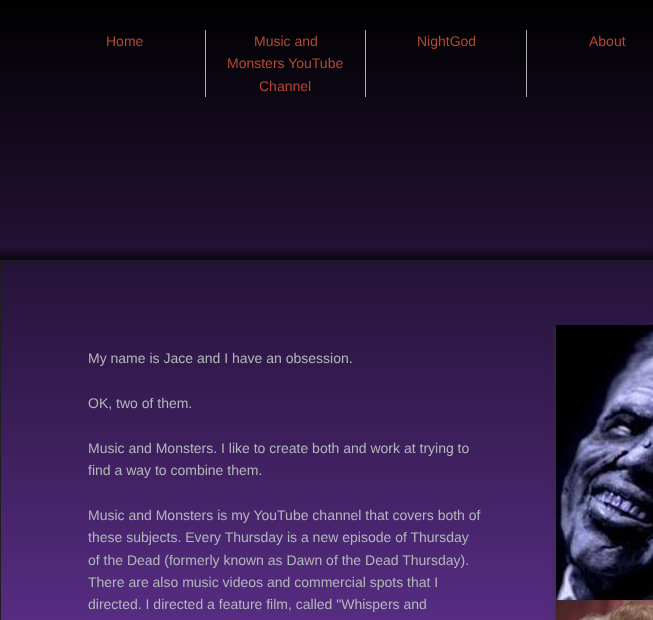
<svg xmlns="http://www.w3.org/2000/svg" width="653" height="620">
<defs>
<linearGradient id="g1" gradientUnits="userSpaceOnUse" x1="600" y1="0" x2="600" y2="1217"><stop offset="0" stop-color="#000"/><stop offset="1" stop-color="#aa56ff"/></linearGradient>
<clipPath id="clip1"><rect x="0" y="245" width="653" height="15"/></clipPath>
</defs>
<rect width="100%" height="100%" fill="#fff"/>
<rect width="653" height="620" fill="url(#g1)"/>
<g clip-path="url(#clip1)">
<rect x="-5" y="255" width="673" height="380" fill="#000000cc" filter="blur(5px)"/>
</g>
<rect x="0.5" y="260.5" width="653" height="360" fill="none" stroke="#1f1f1f"/>
<rect x="205" y="30" width="1" height="67" fill="#aeaeae"/>
<text x="106" y="46" style="font-family:Liberation Sans;font-size:14px;fill:#b64a31">Home</text>
<rect x="365" y="30" width="1" height="67" fill="#aeaeae"/>
<text x="254" y="46" style="font-family:Liberation Sans;font-size:14px;fill:#b64a31">Music and</text>
<text x="227" y="68" style="font-family:Liberation Sans;font-size:14px;fill:#b64a31">Monsters YouTube</text>
<text x="259" y="91" style="font-family:Liberation Sans;font-size:14px;fill:#b64a31">Channel</text>
<rect x="526" y="30" width="1" height="67" fill="#aeaeae"/>
<text x="417" y="46" style="font-family:Liberation Sans;font-size:14px;fill:#b64a31">NightGod</text>
<text x="589" y="46" style="font-family:Liberation Sans;font-size:14px;fill:#b64a31">About</text>
<text x="88" y="363" style="font-family:Liberation Sans;font-size:14px;fill:#b3b8bc">My name is Jace and I have an obsession.</text>
<text x="88" y="408" style="font-family:Liberation Sans;font-size:14px;fill:#b3b8bc">OK, two of them.</text>
<text x="88" y="453" style="font-family:Liberation Sans;font-size:14px;fill:#b3b8bc">Music and Monsters. I like to create both and work at trying to</text>
<text x="88" y="475" style="font-family:Liberation Sans;font-size:14px;fill:#b3b8bc">find a way to combine them.</text>
<text x="88" y="520" style="font-family:Liberation Sans;font-size:14px;fill:#b3b8bc">Music and Monsters is my YouTube channel that covers both of</text>
<text x="88" y="542" style="font-family:Liberation Sans;font-size:14px;fill:#b3b8bc">these subjects. Every Thursday is a new episode of Thursday</text>
<text x="88" y="565" style="font-family:Liberation Sans;font-size:14px;fill:#b3b8bc">of the Dead (formerly known as Dawn of the Dead Thursday).</text>
<text x="88" y="587" style="font-family:Liberation Sans;font-size:14px;fill:#b3b8bc">There are also music videos and commercial spots that I</text>
<text x="88" y="609" style="font-family:Liberation Sans;font-size:14px;fill:#b3b8bc">directed. I directed a feature film, called "Whispers and</text>
<rect x="556" y="328" width="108" height="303" fill="#323232bf" filter="blur(3.5px)"/>
<image x="556" y="325" width="97" height="295" href="media/1.png"/>
</svg>
